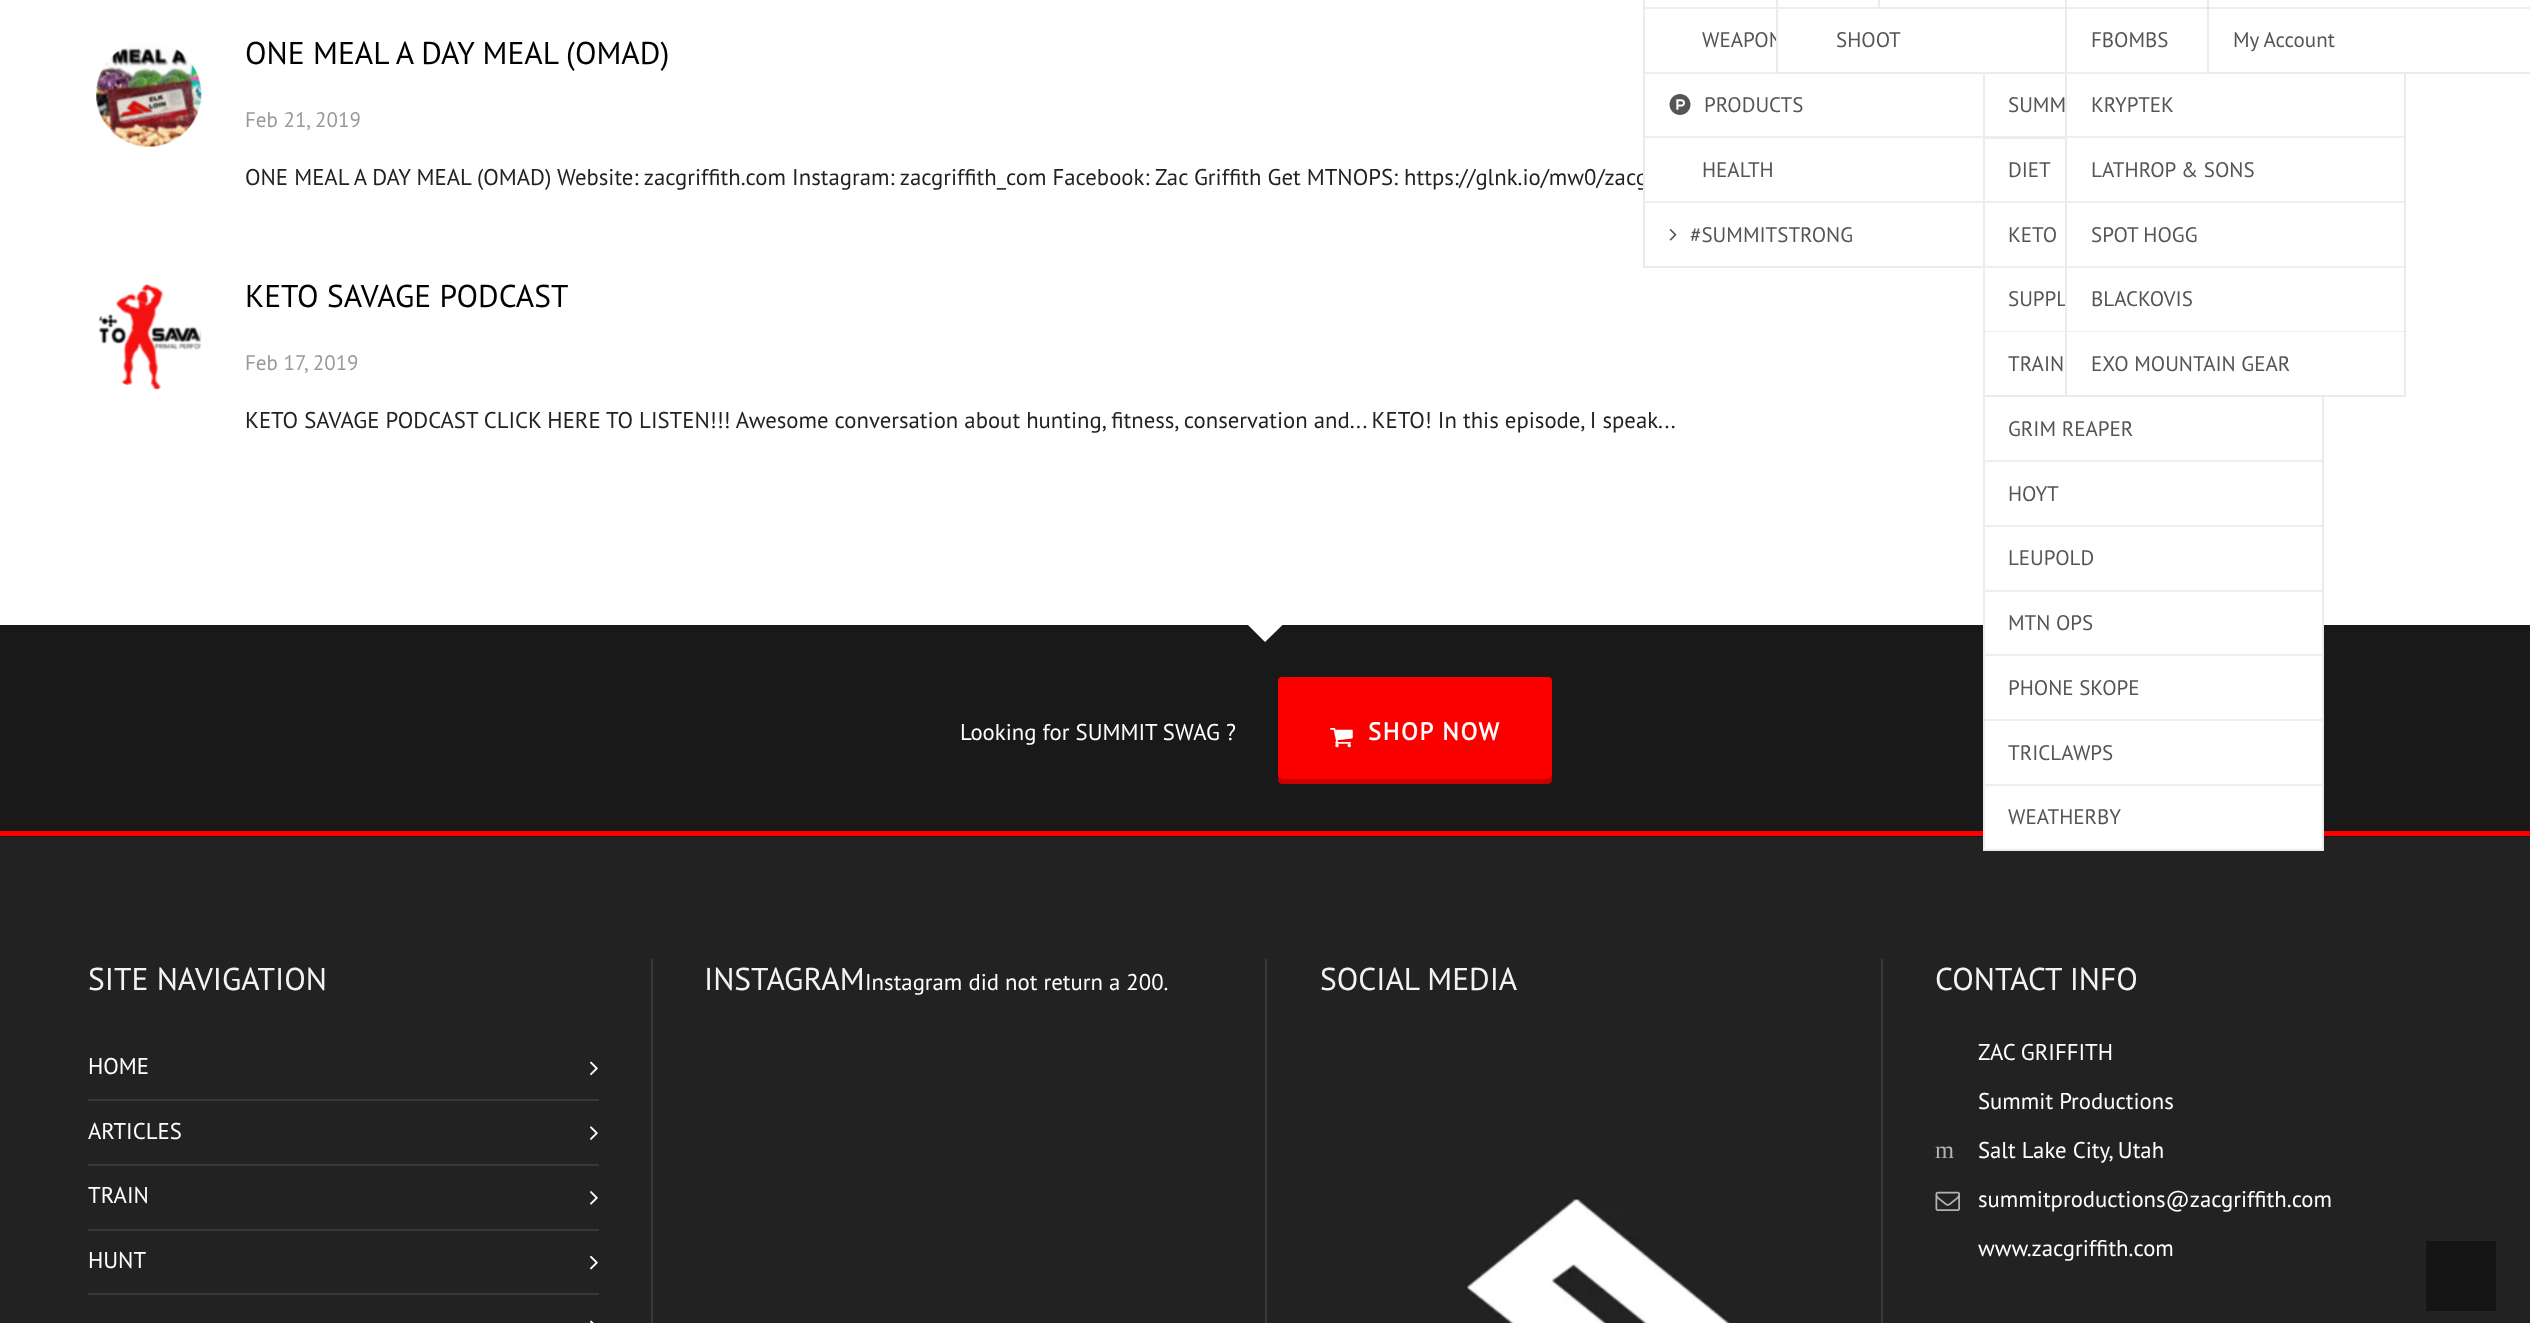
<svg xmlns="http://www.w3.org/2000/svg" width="2530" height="1323">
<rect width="100%" height="100%" fill="#fff"/>
<image x="96" y="42" width="106" height="105" href="media/1.png"/>
<text x="245" y="64" style="font-family:PT Sans;font-size:31.5px;fill:#000">ONE MEAL A DAY MEAL (OMAD)</text>
<text x="245" y="127" style="font-family:PT Sans;font-size:21px;fill:#999">Feb 21, 2019</text>
<text x="245" y="185" style="font-family:PT Sans;font-size:22.75px;fill:#222">ONE MEAL A DAY MEAL (OMAD) Website: zacgriffith.com Instagram: zacgriffith_com Facebook: Zac Griffith Get MTNOPS: https://glnk.io/mw0/zacg</text>
<image x="98" y="284" width="104" height="106" href="media/2.png"/>
<text x="245" y="307" style="font-family:PT Sans;font-size:31.5px;fill:#000">KETO SAVAGE PODCAST</text>
<text x="245" y="370" style="font-family:PT Sans;font-size:21px;fill:#999">Feb 17, 2019</text>
<text x="245" y="428" style="font-family:PT Sans;font-size:22.75px;fill:#222">KETO SAVAGE PODCAST CLICK HERE TO LISTEN!!! Awesome conversation about hunting, fitness, conservation and... KETO! In this episode, I speak...</text>
<rect x="1645" y="173" width="2" height="16" fill="#fff"/>
<rect x="1644" y="-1" width="340" height="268" fill="none" stroke="#ebebeb" stroke-width="2"/>
<path d="M1983 9h-340l2-2h338z" fill="#eee"/>
<text x="1702" y="47" style="font-family:PT Sans;font-size:21px;fill:#555">WEAPON</text>
<rect x="1778" width="207" height="72" fill="#fff"/>
<path d="M1983 74h-340l2-2h338z" fill="#eee"/>
<rect y="625" width="2530" height="212" fill="#191919"/>
<rect y="831" width="2530" height="5" fill="#fc0000"/>
<rect y="837" width="2530" height="486" fill="#222"/>
<rect x="1985" y="625" width="337" height="224" fill="#fff"/>
<rect x="1984" y="73" width="339" height="777" fill="none" stroke="#ebebeb" stroke-width="2"/>
<rect x="1777" y="-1" width="340" height="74" fill="none" stroke="#ebebeb" stroke-width="2"/>
<path d="M2116 9h-340l2-2h338z" fill="#eee"/>
<rect x="1879" y="-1" width="339" height="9" fill="none" stroke="#ebebeb" stroke-width="2"/>
<path d="M1983 138h-340l2-2h338z" fill="#eee"/>
<image x="1669" y="94" width="22" height="21" href="media/3.png"/>
<text x="1704" y="112" style="font-family:PT Sans;font-size:21px;fill:#555">PRODUCTS</text>
<path d="M2322 138h-339l1-2h338z" fill="#eee"/>
<text x="2008" y="112" style="font-family:PT Sans;font-size:21px;fill:#555">SUMM</text>
<path d="M2322 462h-339l1-2h338z" fill="#eee"/>
<text x="2008" y="436" style="font-family:PT Sans;font-size:21px;fill:#555">GRIM REAPER</text>
<path d="M2322 527h-339l1-2h338z" fill="#eee"/>
<text x="2008" y="501" style="font-family:PT Sans;font-size:21px;fill:#555">HOYT</text>
<path d="M2322 592h-339l1-2h338z" fill="#eee"/>
<text x="2008" y="565" style="font-family:PT Sans;font-size:21px;fill:#555">LEUPOLD</text>
<path d="M2322 656h-339l1-2h338z" fill="#eee"/>
<text x="2008" y="630" style="font-family:PT Sans;font-size:21px;fill:#555">MTN OPS</text>
<path d="M2322 721h-339l1-2h338z" fill="#eee"/>
<text x="2008" y="695" style="font-family:PT Sans;font-size:21px;fill:#555">PHONE SKOPE</text>
<path d="M2322 786h-339l1-2h338z" fill="#eee"/>
<text x="2008" y="760" style="font-family:PT Sans;font-size:21px;fill:#555">TRICLAWPS</text>
<text x="2008" y="824" style="font-family:PT Sans;font-size:21px;fill:#555">WEATHERBY</text>
<path d="M1983 203h-340l2-2h338z" fill="#eee"/>
<text x="1702" y="177" style="font-family:PT Sans;font-size:21px;fill:#555">HEALTH</text>
<rect x="1984" y="138" width="339" height="258" fill="none" stroke="#ebebeb" stroke-width="2"/>
<path d="M2322 203h-339l1-2h338z" fill="#eee"/>
<text x="2008" y="177" style="font-family:PT Sans;font-size:21px;fill:#555">DIET</text>
<path d="M2322 268h-339l1-2h338z" fill="#eee"/>
<text x="2008" y="242" style="font-family:PT Sans;font-size:21px;fill:#555">KETO</text>
<path d="M2322 332h-339l1-1h338z" fill="#eee"/>
<text x="2008" y="306" style="font-family:PT Sans;font-size:21px;fill:#555">SUPPL</text>
<text x="2008" y="371" style="font-family:PT Sans;font-size:21px;fill:#555">TRAIN</text>
<image x="1669" y="229" width="8" height="12" href="media/4.png"/>
<text x="1690" y="242" style="font-family:PT Sans;font-size:21px;fill:#555">#SUMMITSTRONG</text>
<text x="1836" y="47" style="font-family:PT Sans;font-size:21px;fill:#555">SHOOT</text>
<rect x="2067" width="257" height="395" fill="#fff"/>
<rect x="2066" y="-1" width="339" height="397" fill="none" stroke="#ebebeb" stroke-width="2"/>
<path d="M2404 9h-339l2-2h337z" fill="#eee"/>
<path d="M2404 74h-339l2-2h337z" fill="#eee"/>
<text x="2091" y="47" style="font-family:PT Sans;font-size:21px;fill:#555">FBOMBS</text>
<path d="M2404 138h-339l2-2h337z" fill="#eee"/>
<text x="2091" y="112" style="font-family:PT Sans;font-size:21px;fill:#555">KRYPTEK</text>
<path d="M2404 203h-339l2-2h337z" fill="#eee"/>
<text x="2091" y="177" style="font-family:PT Sans;font-size:21px;fill:#555">LATHROP &amp; SONS</text>
<path d="M2404 268h-339l2-2h337z" fill="#eee"/>
<text x="2091" y="242" style="font-family:PT Sans;font-size:21px;fill:#555">SPOT HOGG</text>
<path d="M2404 332h-339l2-1h337z" fill="#eee"/>
<text x="2091" y="306" style="font-family:PT Sans;font-size:21px;fill:#555">BLACKOVIS</text>
<text x="2091" y="371" style="font-family:PT Sans;font-size:21px;fill:#555">EXO MOUNTAIN GEAR</text>
<rect x="2209" width="197" height="72" fill="#fff"/>
<rect x="2208" y="-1" width="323" height="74" fill="none" stroke="#ebebeb" stroke-width="2"/>
<path d="M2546 9h-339l1-2h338z" fill="#eee"/>
<text x="2233" y="47" style="font-family:PT Sans;font-size:21px;fill:#555">My Account</text>
<path d="M1246 623h38.5l-19.5 19z" fill="#fff"/>
<text x="960" y="740" style="font-family:PT Sans;font-size:22.75px;fill:#fff">Looking for SUMMIT SWAG ?</text>
<path d="M1278 777v3c0 2 2 4 4 4h266c2 0 4-2 4-4v-3c-1 1-2 2-3 2h-268c-1 0-2-1-3-2z" fill="#ca0000"/>
<rect x="1278" y="677" width="274" height="102" rx="4" fill="#fc0000"/>
<image x="1330" y="728" width="23" height="20" href="media/5.png"/>
<text x="1368" y="740" style="font-family:PT Sans;font-size:24.5px;font-weight:bold;letter-spacing:1.75px;fill:#fff">SHOP NOW</text>
<text x="88" y="990" style="font-family:PT Sans;font-size:31.5px;fill:#f4f4f4">SITE NAVIGATION</text>
<text x="88" y="1074" style="font-family:PT Sans;font-size:22.75px;fill:#fff">HOME</text>
<image x="590" y="1061" width="8" height="15" href="media/6.png"/>
<rect x="88" y="1099" width="511" height="2" fill="#383838"/>
<text x="88" y="1139" style="font-family:PT Sans;font-size:22.75px;fill:#fff">ARTICLES</text>
<image x="590" y="1126" width="8" height="14" href="media/7.png"/>
<rect x="88" y="1164" width="511" height="2" fill="#383838"/>
<text x="88" y="1203" style="font-family:PT Sans;font-size:22.75px;fill:#fff">TRAIN</text>
<image x="590" y="1191" width="8" height="14" href="media/8.png"/>
<rect x="88" y="1229" width="511" height="2" fill="#383838"/>
<text x="88" y="1268" style="font-family:PT Sans;font-size:22.75px;fill:#fff">HUNT</text>
<image x="590" y="1255" width="8" height="15" href="media/9.png"/>
<rect x="88" y="1293" width="511" height="2" fill="#383838"/>
<image x="590" y="1320" width="4" height="3" href="media/10.png"/>
<rect x="651" y="959" width="2" height="364" fill="#383838"/>
<text x="704" y="990" style="font-family:PT Sans;font-size:31.5px;fill:#f4f4f4">INSTAGRAM</text>
<text x="865" y="990" style="font-family:PT Sans;font-size:22.75px;fill:#fff">Instagram did not return a 200.</text>
<rect x="1265" y="959" width="2" height="364" fill="#383838"/>
<text x="1320" y="990" style="font-family:PT Sans;font-size:31.5px;fill:#f4f4f4">SOCIAL MEDIA</text>
<image x="1466" y="1199" width="264" height="124" href="media/11.png"/>
<rect x="1881" y="959" width="2" height="364" fill="#383838"/>
<text x="1935" y="990" style="font-family:PT Sans;font-size:31.5px;fill:#f4f4f4">CONTACT INFO</text>
<text x="1978" y="1060" style="font-family:PT Sans;font-size:22.75px;fill:#fff">ZAC GRIFFITH</text>
<text x="1978" y="1109" style="font-family:PT Sans;font-size:22.75px;fill:#fff">Summit Productions</text>
<text x="1935" y="1158" style="font-family:Liberation Serif;font-size:24.5px;fill:#b2b2b2">m</text>
<text x="1978" y="1158" style="font-family:PT Sans;font-size:22.75px;fill:#fff">Salt Lake City, Utah</text>
<image x="1935" y="1191" width="25" height="20" href="media/12.png"/>
<text x="1978" y="1207" style="font-family:PT Sans;font-size:22.75px;fill:#fff">summitproductions@zacgriffith.com</text>
<text x="1978" y="1256" style="font-family:PT Sans;font-size:22.75px;fill:#fff">www.zacgriffith.com</text>
<rect x="2426" y="1241" width="70" height="70" fill="#141414"/>
</svg>
